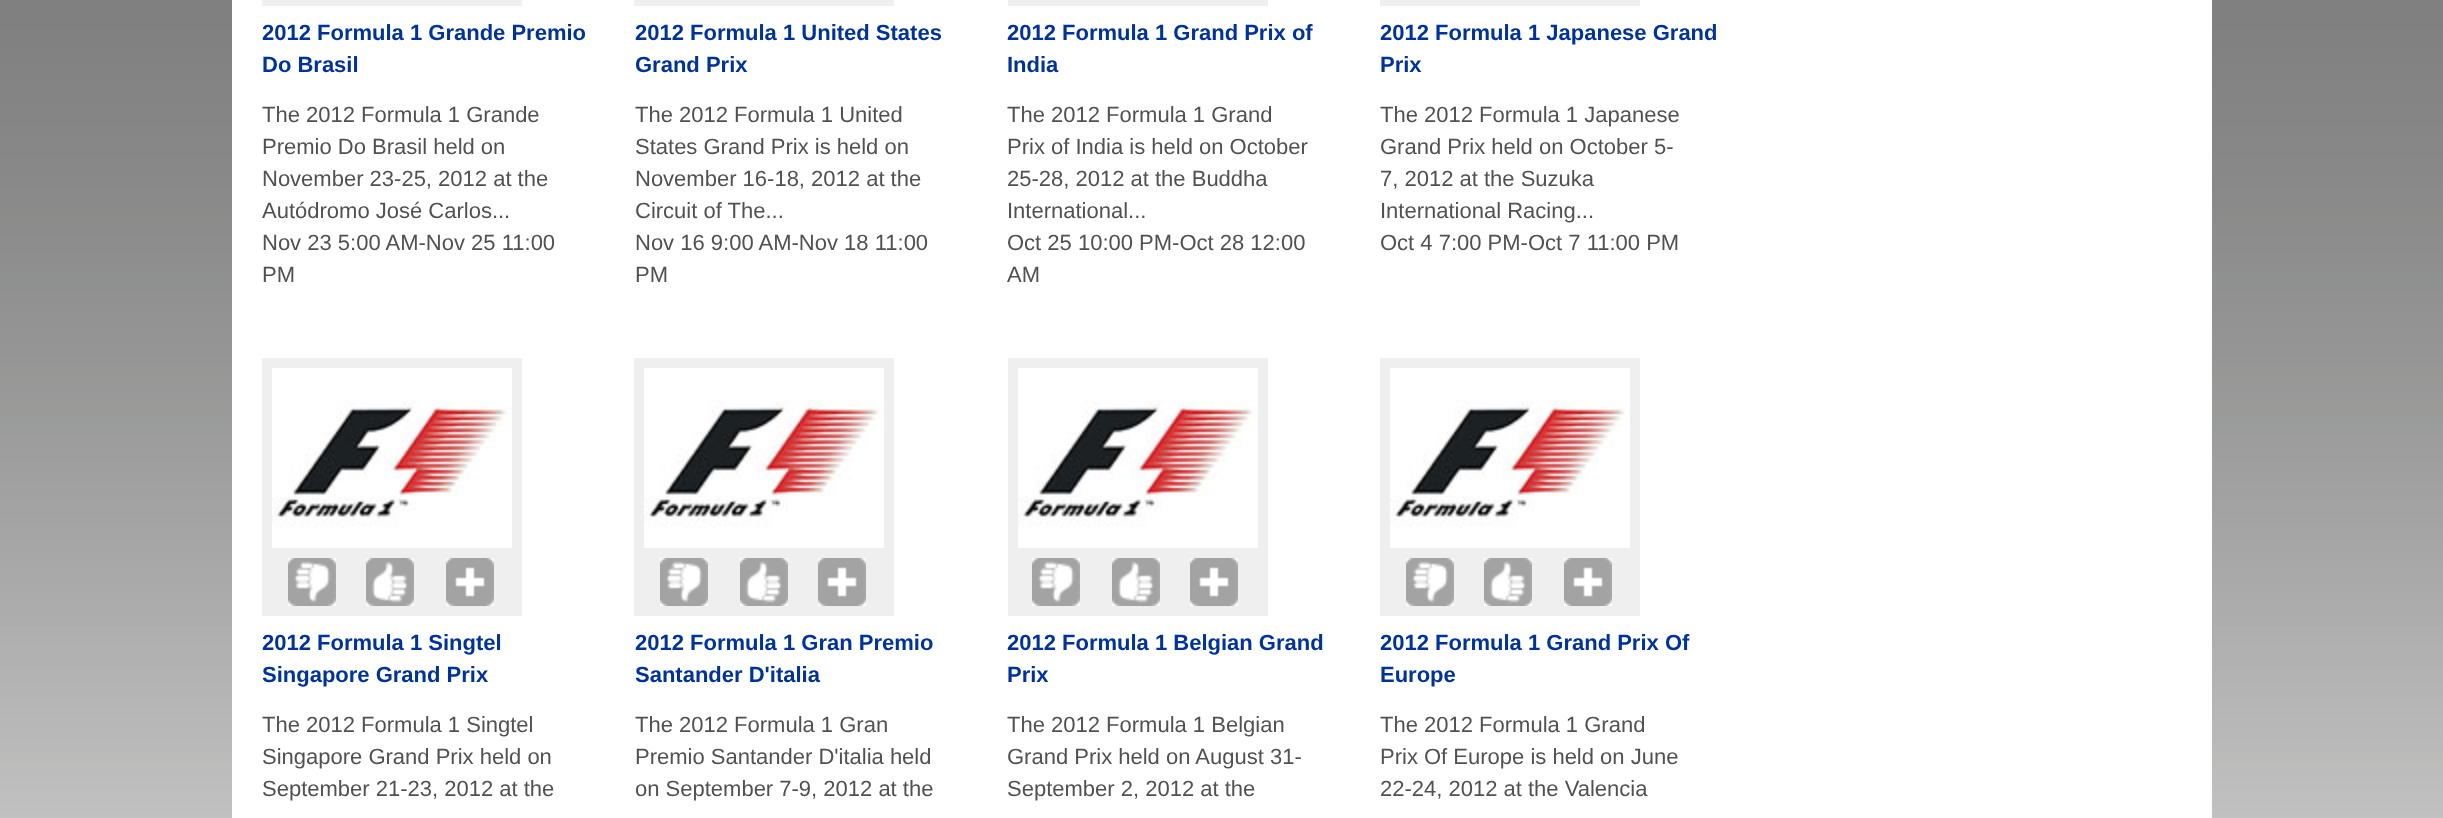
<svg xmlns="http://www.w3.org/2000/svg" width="2443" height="818">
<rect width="100%" height="100%" fill="#fff"/>
<image x="0" y="0" width="2443" height="818" href="media/1.png"/>
<rect x="232" width="1980" height="818" fill="#fff"/>
<rect x="262" width="260" height="6" fill="#efefef"/>
<text x="262" y="40" style="font-family:Liberation Sans;font-size:22px;font-weight:bold;fill:#039">2012 Formula 1 Grande Premio</text>
<text x="262" y="72" style="font-family:Liberation Sans;font-size:22px;font-weight:bold;fill:#039">Do Brasil</text>
<text x="262" y="122" style="font-family:Liberation Sans;font-size:22px;fill:#515151">The 2012 Formula 1 Grande</text>
<text x="262" y="154" style="font-family:Liberation Sans;font-size:22px;fill:#515151">Premio Do Brasil held on</text>
<text x="262" y="186" style="font-family:Liberation Sans;font-size:22px;fill:#515151">November 23-25, 2012 at the</text>
<text x="262" y="218" style="font-family:Liberation Sans;font-size:22px;fill:#515151">Autódromo José Carlos...</text>
<text x="262" y="250" style="font-family:Liberation Sans;font-size:22px;fill:#515151">Nov 23 5:00 AM-Nov 25 11:00</text>
<text x="262" y="282" style="font-family:Liberation Sans;font-size:22px;fill:#515151">PM</text>
<rect x="634" width="260" height="6" fill="#efefef"/>
<text x="635" y="40" style="font-family:Liberation Sans;font-size:22px;font-weight:bold;fill:#039">2012 Formula 1 United States</text>
<text x="635" y="72" style="font-family:Liberation Sans;font-size:22px;font-weight:bold;fill:#039">Grand Prix</text>
<text x="635" y="122" style="font-family:Liberation Sans;font-size:22px;fill:#515151">The 2012 Formula 1 United</text>
<text x="635" y="154" style="font-family:Liberation Sans;font-size:22px;fill:#515151">States Grand Prix is held on</text>
<text x="635" y="186" style="font-family:Liberation Sans;font-size:22px;fill:#515151">November 16-18, 2012 at the</text>
<text x="635" y="218" style="font-family:Liberation Sans;font-size:22px;fill:#515151">Circuit of The...</text>
<text x="635" y="250" style="font-family:Liberation Sans;font-size:22px;fill:#515151">Nov 16 9:00 AM-Nov 18 11:00</text>
<text x="635" y="282" style="font-family:Liberation Sans;font-size:22px;fill:#515151">PM</text>
<rect x="1008" width="260" height="6" fill="#efefef"/>
<text x="1007" y="40" style="font-family:Liberation Sans;font-size:22px;font-weight:bold;fill:#039">2012 Formula 1 Grand Prix of</text>
<text x="1007" y="72" style="font-family:Liberation Sans;font-size:22px;font-weight:bold;fill:#039">India</text>
<text x="1007" y="122" style="font-family:Liberation Sans;font-size:22px;fill:#515151">The 2012 Formula 1 Grand</text>
<text x="1007" y="154" style="font-family:Liberation Sans;font-size:22px;fill:#515151">Prix of India is held on October</text>
<text x="1007" y="186" style="font-family:Liberation Sans;font-size:22px;fill:#515151">25-28, 2012 at the Buddha</text>
<text x="1007" y="218" style="font-family:Liberation Sans;font-size:22px;fill:#515151">International...</text>
<text x="1007" y="250" style="font-family:Liberation Sans;font-size:22px;fill:#515151">Oct 25 10:00 PM-Oct 28 12:00</text>
<text x="1007" y="282" style="font-family:Liberation Sans;font-size:22px;fill:#515151">AM</text>
<rect x="1380" width="260" height="6" fill="#efefef"/>
<text x="1380" y="40" style="font-family:Liberation Sans;font-size:22px;font-weight:bold;fill:#039">2012 Formula 1 Japanese Grand</text>
<text x="1380" y="72" style="font-family:Liberation Sans;font-size:22px;font-weight:bold;fill:#039">Prix</text>
<text x="1380" y="122" style="font-family:Liberation Sans;font-size:22px;fill:#515151">The 2012 Formula 1 Japanese</text>
<text x="1380" y="154" style="font-family:Liberation Sans;font-size:22px;fill:#515151">Grand Prix held on October 5-</text>
<text x="1380" y="186" style="font-family:Liberation Sans;font-size:22px;fill:#515151">7, 2012 at the Suzuka</text>
<text x="1380" y="218" style="font-family:Liberation Sans;font-size:22px;fill:#515151">International Racing...</text>
<text x="1380" y="250" style="font-family:Liberation Sans;font-size:22px;fill:#515151">Oct 4 7:00 PM-Oct 7 11:00 PM</text>
<rect x="262" y="358" width="260" height="258" fill="#efefef"/>
<image x="272" y="368" width="240" height="180" href="media/2.png"/>
<image x="288" y="558" width="48" height="48" href="media/3.png"/>
<image x="366" y="558" width="48" height="48" href="media/4.png"/>
<image x="446" y="558" width="48" height="48" href="media/5.png"/>
<text x="262" y="650" style="font-family:Liberation Sans;font-size:22px;font-weight:bold;fill:#039">2012 Formula 1 Singtel</text>
<text x="262" y="682" style="font-family:Liberation Sans;font-size:22px;font-weight:bold;fill:#039">Singapore Grand Prix</text>
<text x="262" y="732" style="font-family:Liberation Sans;font-size:22px;fill:#515151">The 2012 Formula 1 Singtel</text>
<text x="262" y="764" style="font-family:Liberation Sans;font-size:22px;fill:#515151">Singapore Grand Prix held on</text>
<text x="262" y="796" style="font-family:Liberation Sans;font-size:22px;fill:#515151">September 21-23, 2012 at the</text>
<rect x="634" y="358" width="260" height="258" fill="#efefef"/>
<image x="644" y="368" width="240" height="180" href="media/2.png"/>
<image x="660" y="558" width="48" height="48" href="media/3.png"/>
<image x="740" y="558" width="48" height="48" href="media/4.png"/>
<image x="818" y="558" width="48" height="48" href="media/5.png"/>
<text x="635" y="650" style="font-family:Liberation Sans;font-size:22px;font-weight:bold;fill:#039">2012 Formula 1 Gran Premio</text>
<text x="635" y="682" style="font-family:Liberation Sans;font-size:22px;font-weight:bold;fill:#039">Santander D'italia</text>
<text x="635" y="732" style="font-family:Liberation Sans;font-size:22px;fill:#515151">The 2012 Formula 1 Gran</text>
<text x="635" y="764" style="font-family:Liberation Sans;font-size:22px;fill:#515151">Premio Santander D'italia held</text>
<text x="635" y="796" style="font-family:Liberation Sans;font-size:22px;fill:#515151">on September 7-9, 2012 at the</text>
<rect x="1008" y="358" width="260" height="258" fill="#efefef"/>
<image x="1018" y="368" width="240" height="180" href="media/2.png"/>
<image x="1032" y="558" width="48" height="48" href="media/3.png"/>
<image x="1112" y="558" width="48" height="48" href="media/4.png"/>
<image x="1190" y="558" width="48" height="48" href="media/5.png"/>
<text x="1007" y="650" style="font-family:Liberation Sans;font-size:22px;font-weight:bold;fill:#039">2012 Formula 1 Belgian Grand</text>
<text x="1007" y="682" style="font-family:Liberation Sans;font-size:22px;font-weight:bold;fill:#039">Prix</text>
<text x="1007" y="732" style="font-family:Liberation Sans;font-size:22px;fill:#515151">The 2012 Formula 1 Belgian</text>
<text x="1007" y="764" style="font-family:Liberation Sans;font-size:22px;fill:#515151">Grand Prix held on August 31-</text>
<text x="1007" y="796" style="font-family:Liberation Sans;font-size:22px;fill:#515151">September 2, 2012 at the</text>
<rect x="1380" y="358" width="260" height="258" fill="#efefef"/>
<image x="1390" y="368" width="240" height="180" href="media/2.png"/>
<image x="1406" y="558" width="48" height="48" href="media/3.png"/>
<image x="1484" y="558" width="48" height="48" href="media/4.png"/>
<image x="1564" y="558" width="48" height="48" href="media/5.png"/>
<text x="1380" y="650" style="font-family:Liberation Sans;font-size:22px;font-weight:bold;fill:#039">2012 Formula 1 Grand Prix Of</text>
<text x="1380" y="682" style="font-family:Liberation Sans;font-size:22px;font-weight:bold;fill:#039">Europe</text>
<text x="1380" y="732" style="font-family:Liberation Sans;font-size:22px;fill:#515151">The 2012 Formula 1 Grand</text>
<text x="1380" y="764" style="font-family:Liberation Sans;font-size:22px;fill:#515151">Prix Of Europe is held on June</text>
<text x="1380" y="796" style="font-family:Liberation Sans;font-size:22px;fill:#515151">22-24, 2012 at the Valencia</text>
</svg>
